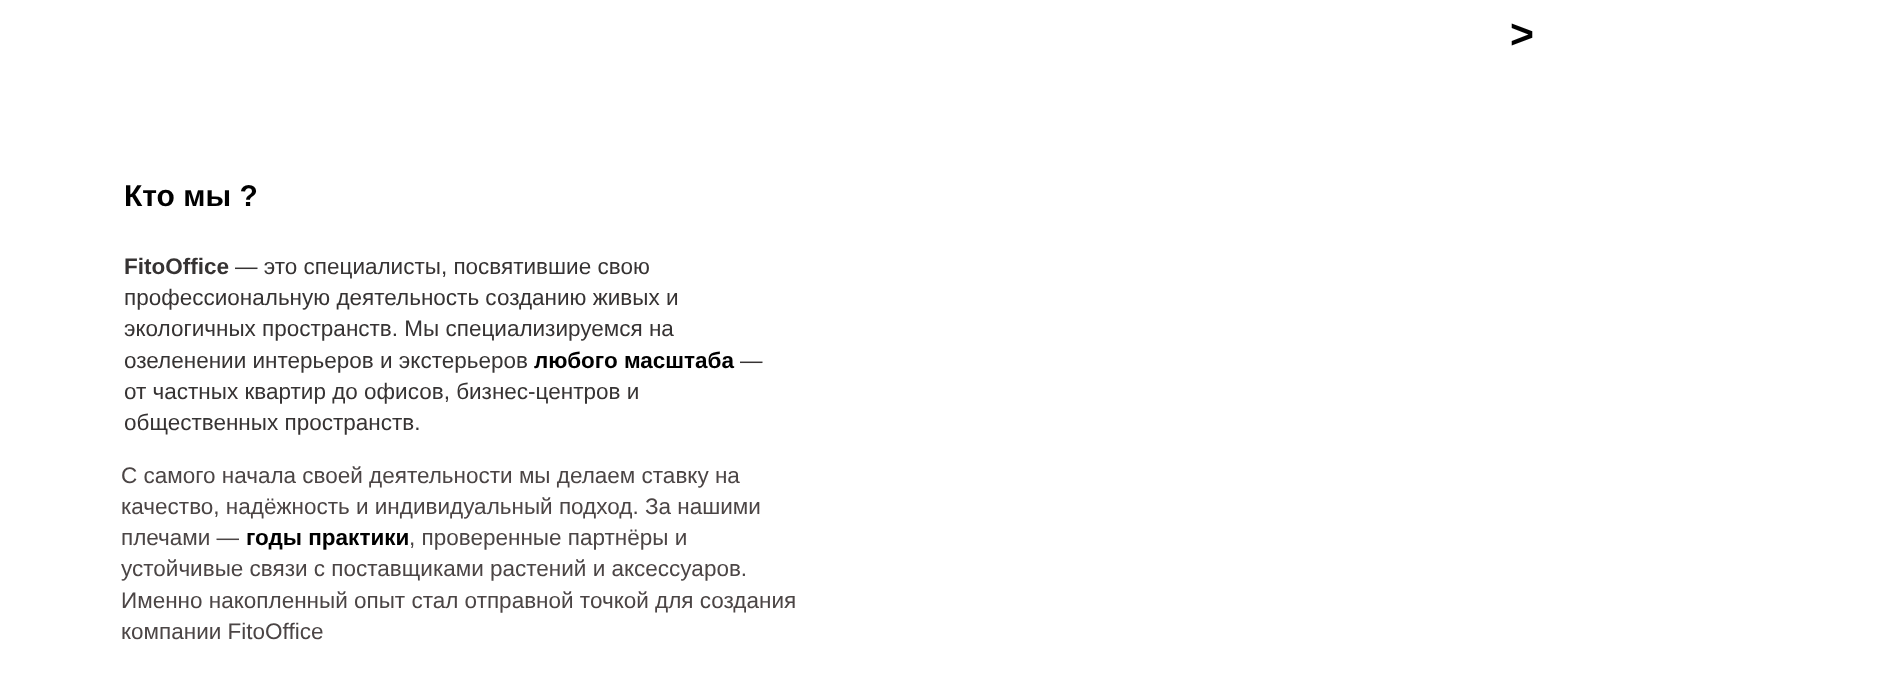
<svg xmlns="http://www.w3.org/2000/svg" width="1880" height="697">
<rect width="100%" height="100%" fill="#fff"/>
<text x="1510" y="48" style="font-family:Liberation Sans;font-size:41px;font-weight:bold;fill:#000">&gt;</text>
<text x="124" y="206" style="font-family:Liberation Sans;font-size:30px;font-weight:bold;fill:#000">Кто мы ?</text>
<text x="124" y="274" style="font-family:Liberation Sans;font-size:22.5px;font-weight:bold;fill:#363333">FitoOffice</text>
<text x="235" y="274" style="font-family:Liberation Sans;font-size:22.5px;fill:#363333">— это специалисты, посвятившие свою</text>
<text x="124" y="305" style="font-family:Liberation Sans;font-size:22.5px;fill:#363333">профессиональную деятельность созданию живых и</text>
<text x="124" y="336" style="font-family:Liberation Sans;font-size:22.5px;fill:#363333">экологичных пространств. Мы специализируемся на</text>
<text x="124" y="368" style="font-family:Liberation Sans;font-size:22.5px;fill:#363333">озеленении интерьеров и экстерьеров</text>
<text x="534" y="368" style="font-family:Liberation Sans;font-size:22.5px;font-weight:bold;fill:#000">любого масштаба</text>
<text x="740" y="368" style="font-family:Liberation Sans;font-size:22.5px;fill:#363333">—</text>
<text x="124" y="399" style="font-family:Liberation Sans;font-size:22.5px;fill:#363333">от частных квартир до офисов, бизнес-центров и</text>
<text x="124" y="430" style="font-family:Liberation Sans;font-size:22.5px;fill:#363333">общественных пространств.</text>
<text x="121" y="483" style="font-family:Liberation Sans;font-size:22.5px;fill:#4b4545">С самого начала своей деятельности мы делаем ставку на</text>
<text x="121" y="514" style="font-family:Liberation Sans;font-size:22.5px;fill:#4b4545">качество, надёжность и индивидуальный подход. За нашими</text>
<text x="121" y="545" style="font-family:Liberation Sans;font-size:22.5px;fill:#4b4545">плечами —</text>
<text x="246" y="545" style="font-family:Liberation Sans;font-size:22.5px;font-weight:bold;fill:#000">годы практики</text>
<text x="409" y="545" style="font-family:Liberation Sans;font-size:22.5px;fill:#4b4545">, проверенные партнёры и</text>
<text x="121" y="576" style="font-family:Liberation Sans;font-size:22.5px;fill:#4b4545">устойчивые связи с поставщиками растений и аксессуаров.</text>
<text x="121" y="608" style="font-family:Liberation Sans;font-size:22.5px;fill:#4b4545">Именно накопленный опыт стал отправной точкой для создания</text>
<text x="121" y="639" style="font-family:Liberation Sans;font-size:22.5px;fill:#4b4545">компании FitoOffice</text>
</svg>
